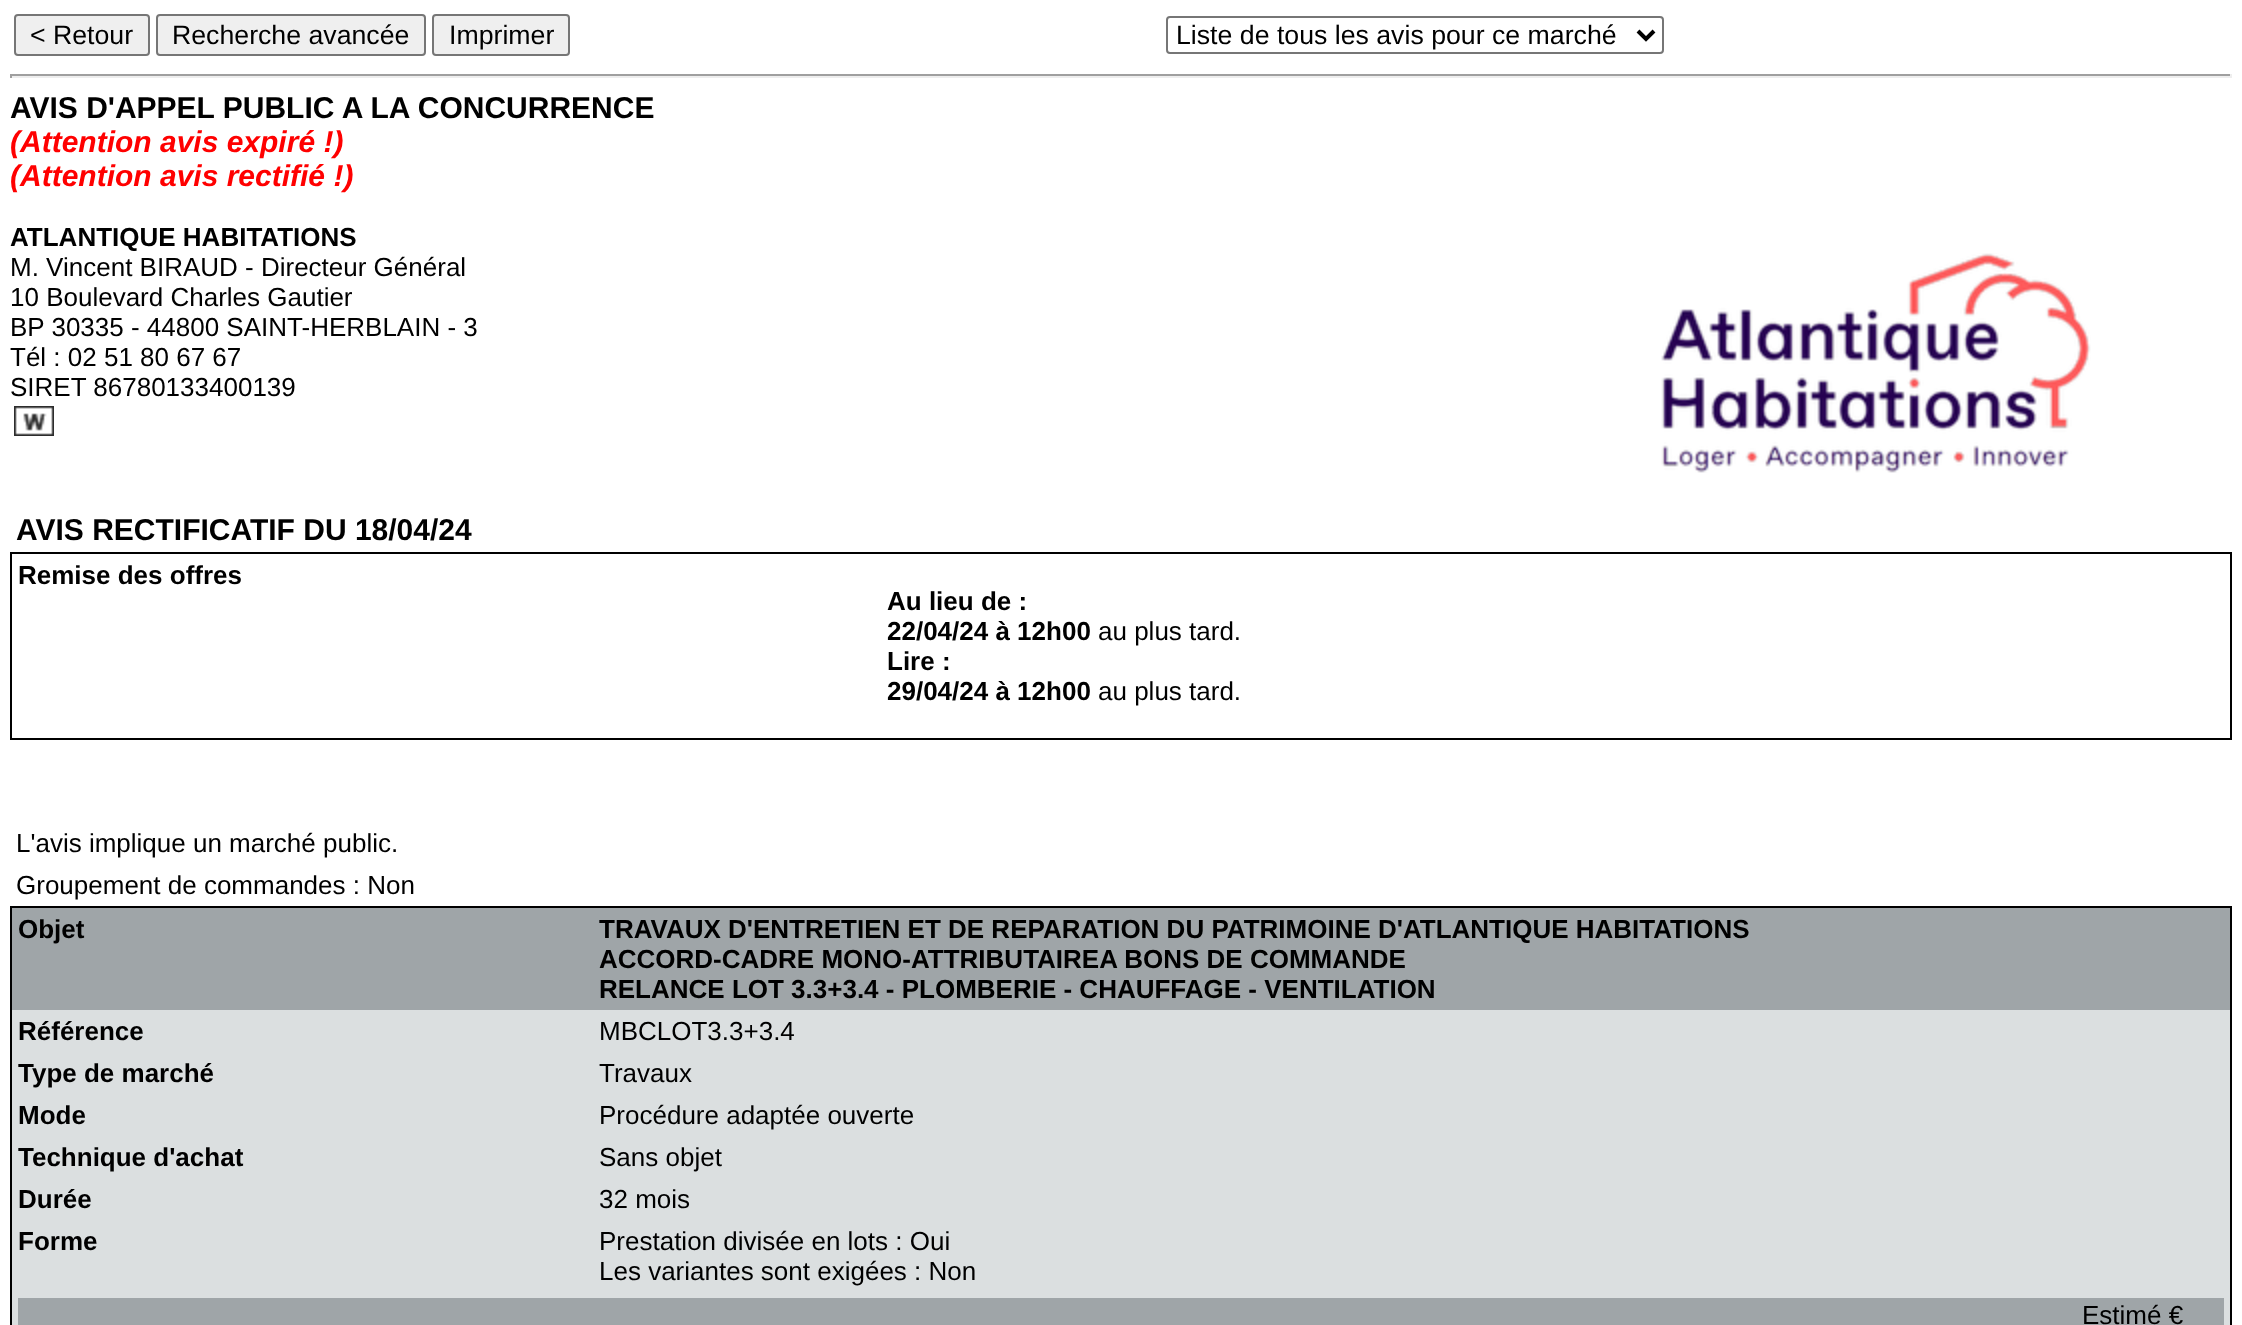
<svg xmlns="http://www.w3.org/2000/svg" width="2242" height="1325">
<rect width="100%" height="100%" fill="#fff"/>
<rect x="15" y="15" width="134" height="40" rx="3" fill="#efefef" stroke="#767676" stroke-width="2"/>
<text x="30" y="44" style="font-family:Liberation Sans;font-size:26.7px;fill:#000">&lt; Retour</text>
<rect x="157" y="15" width="268" height="40" rx="3" fill="#efefef" stroke="#767676" stroke-width="2"/>
<text x="172" y="44" style="font-family:Liberation Sans;font-size:26.7px;fill:#000">Recherche avancée</text>
<rect x="433" y="15" width="136" height="40" rx="3" fill="#efefef" stroke="#767676" stroke-width="2"/>
<text x="449" y="44" style="font-family:Liberation Sans;font-size:26.7px;fill:#000">Imprimer</text>
<rect x="1167" y="17" width="496" height="36" rx="3" fill="none" stroke="#767676" stroke-width="2"/>
<path d="M1638 31l8 8l8-8" fill="none" stroke="#000" stroke-width="4"/>
<text x="1176" y="44" style="font-family:Liberation Sans;font-size:26.7px;fill:#000">Liste de tous les avis pour ce marché</text>
<rect x="10" y="74" width="2222" height="2" fill="#9f9f9f"/>
<rect x="2230" y="74" width="2" height="4" fill="#eee"/>
<rect x="10" y="76" width="2222" height="2" fill="#eee"/>
<rect x="10" y="74" width="2" height="4" fill="#9f9f9f"/>
<text x="10" y="118" style="font-family:Liberation Sans;font-size:30px;font-weight:bold;fill:#000">AVIS D'APPEL PUBLIC A LA CONCURRENCE</text>
<text x="10" y="152" style="font-family:Liberation Sans;font-size:30px;font-weight:bold;font-style:italic;fill:#f00">(Attention avis expiré !)</text>
<text x="10" y="186" style="font-family:Liberation Sans;font-size:30px;font-weight:bold;font-style:italic;fill:#f00">(Attention avis rectifié !)</text>
<text x="10" y="246" style="font-family:Liberation Sans;font-size:26px;font-weight:bold;fill:#000">ATLANTIQUE HABITATIONS</text>
<text x="10" y="276" style="font-family:Liberation Sans;font-size:26px;fill:#000">M. Vincent BIRAUD - Directeur Général</text>
<text x="10" y="306" style="font-family:Liberation Sans;font-size:26px;fill:#000">10 Boulevard Charles Gautier</text>
<text x="10" y="336" style="font-family:Liberation Sans;font-size:26px;fill:#000">BP 30335 - 44800 SAINT-HERBLAIN - 3</text>
<text x="10" y="366" style="font-family:Liberation Sans;font-size:26px;fill:#000">Tél : 02 51 80 67 67</text>
<text x="10" y="396" style="font-family:Liberation Sans;font-size:26px;fill:#000">SIRET 86780133400139</text>
<image x="14" y="406" width="40" height="30" href="media/1.png"/>
<image x="1661" y="253" width="430" height="220" href="media/2.png"/>
<text x="16" y="540" style="font-family:Liberation Sans;font-size:30px;font-weight:bold;fill:#000">AVIS RECTIFICATIF DU 18/04/24</text>
<rect x="11" y="553" width="2220" height="186" fill="none" stroke="#000" stroke-width="2"/>
<text x="18" y="584" style="font-family:Liberation Sans;font-size:26px;font-weight:bold;fill:#000">Remise des offres</text>
<text x="887" y="610" style="font-family:Liberation Sans;font-size:26px;font-weight:bold;fill:#000">Au lieu de :</text>
<text x="887" y="640" style="font-family:Liberation Sans;font-size:26px;font-weight:bold;fill:#000">22/04/24 à 12h00</text>
<text x="1098" y="640" style="font-family:Liberation Sans;font-size:26px;fill:#000">au plus tard.</text>
<text x="887" y="670" style="font-family:Liberation Sans;font-size:26px;font-weight:bold;fill:#000">Lire :</text>
<text x="887" y="700" style="font-family:Liberation Sans;font-size:26px;font-weight:bold;fill:#000">29/04/24 à 12h00</text>
<text x="1098" y="700" style="font-family:Liberation Sans;font-size:26px;fill:#000">au plus tard.</text>
<text x="16" y="852" style="font-family:Liberation Sans;font-size:26px;fill:#000">L'avis implique un marché public.</text>
<text x="16" y="894" style="font-family:Liberation Sans;font-size:26px;fill:#000">Groupement de commandes : Non</text>
<rect x="11" y="907" width="2220" height="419" fill="none" stroke="#000" stroke-width="2"/>
<rect x="12" y="908" width="2218" height="102" fill="#9fa5a8"/>
<text x="18" y="938" style="font-family:Liberation Sans;font-size:26px;font-weight:bold;fill:#000">Objet</text>
<text x="599" y="938" style="font-family:Liberation Sans;font-size:26px;font-weight:bold;fill:#000">TRAVAUX D'ENTRETIEN ET DE REPARATION DU PATRIMOINE D'ATLANTIQUE HABITATIONS</text>
<text x="599" y="968" style="font-family:Liberation Sans;font-size:26px;font-weight:bold;fill:#000">ACCORD-CADRE MONO-ATTRIBUTAIREA BONS DE COMMANDE</text>
<text x="599" y="998" style="font-family:Liberation Sans;font-size:26px;font-weight:bold;fill:#000">RELANCE LOT 3.3+3.4 - PLOMBERIE - CHAUFFAGE - VENTILATION</text>
<rect x="12" y="1010" width="2218" height="42" fill="#dbdfe0"/>
<text x="18" y="1040" style="font-family:Liberation Sans;font-size:26px;font-weight:bold;fill:#000">Référence</text>
<text x="599" y="1040" style="font-family:Liberation Sans;font-size:26px;fill:#000">MBCLOT3.3+3.4</text>
<rect x="12" y="1052" width="2218" height="42" fill="#dbdfe0"/>
<text x="18" y="1082" style="font-family:Liberation Sans;font-size:26px;font-weight:bold;fill:#000">Type de marché</text>
<text x="599" y="1082" style="font-family:Liberation Sans;font-size:26px;fill:#000">Travaux</text>
<rect x="12" y="1094" width="2218" height="42" fill="#dbdfe0"/>
<text x="18" y="1124" style="font-family:Liberation Sans;font-size:26px;font-weight:bold;fill:#000">Mode</text>
<text x="599" y="1124" style="font-family:Liberation Sans;font-size:26px;fill:#000">Procédure adaptée ouverte</text>
<rect x="12" y="1136" width="2218" height="42" fill="#dbdfe0"/>
<text x="18" y="1166" style="font-family:Liberation Sans;font-size:26px;font-weight:bold;fill:#000">Technique d'achat</text>
<text x="599" y="1166" style="font-family:Liberation Sans;font-size:26px;fill:#000">Sans objet</text>
<rect x="12" y="1178" width="2218" height="42" fill="#dbdfe0"/>
<text x="18" y="1208" style="font-family:Liberation Sans;font-size:26px;font-weight:bold;fill:#000">Durée</text>
<text x="599" y="1208" style="font-family:Liberation Sans;font-size:26px;fill:#000">32 mois</text>
<rect x="12" y="1220" width="2218" height="105" fill="#dbdfe0"/>
<text x="18" y="1250" style="font-family:Liberation Sans;font-size:26px;font-weight:bold;fill:#000">Forme</text>
<text x="599" y="1250" style="font-family:Liberation Sans;font-size:26px;fill:#000">Prestation divisée en lots : Oui</text>
<text x="599" y="1280" style="font-family:Liberation Sans;font-size:26px;fill:#000">Les variantes sont exigées : Non</text>
<rect x="18" y="1298" width="2206" height="27" fill="#9fa5a8"/>
<text x="2082" y="1324" style="font-family:Liberation Sans;font-size:26px;fill:#000">Estimé €</text>
</svg>
